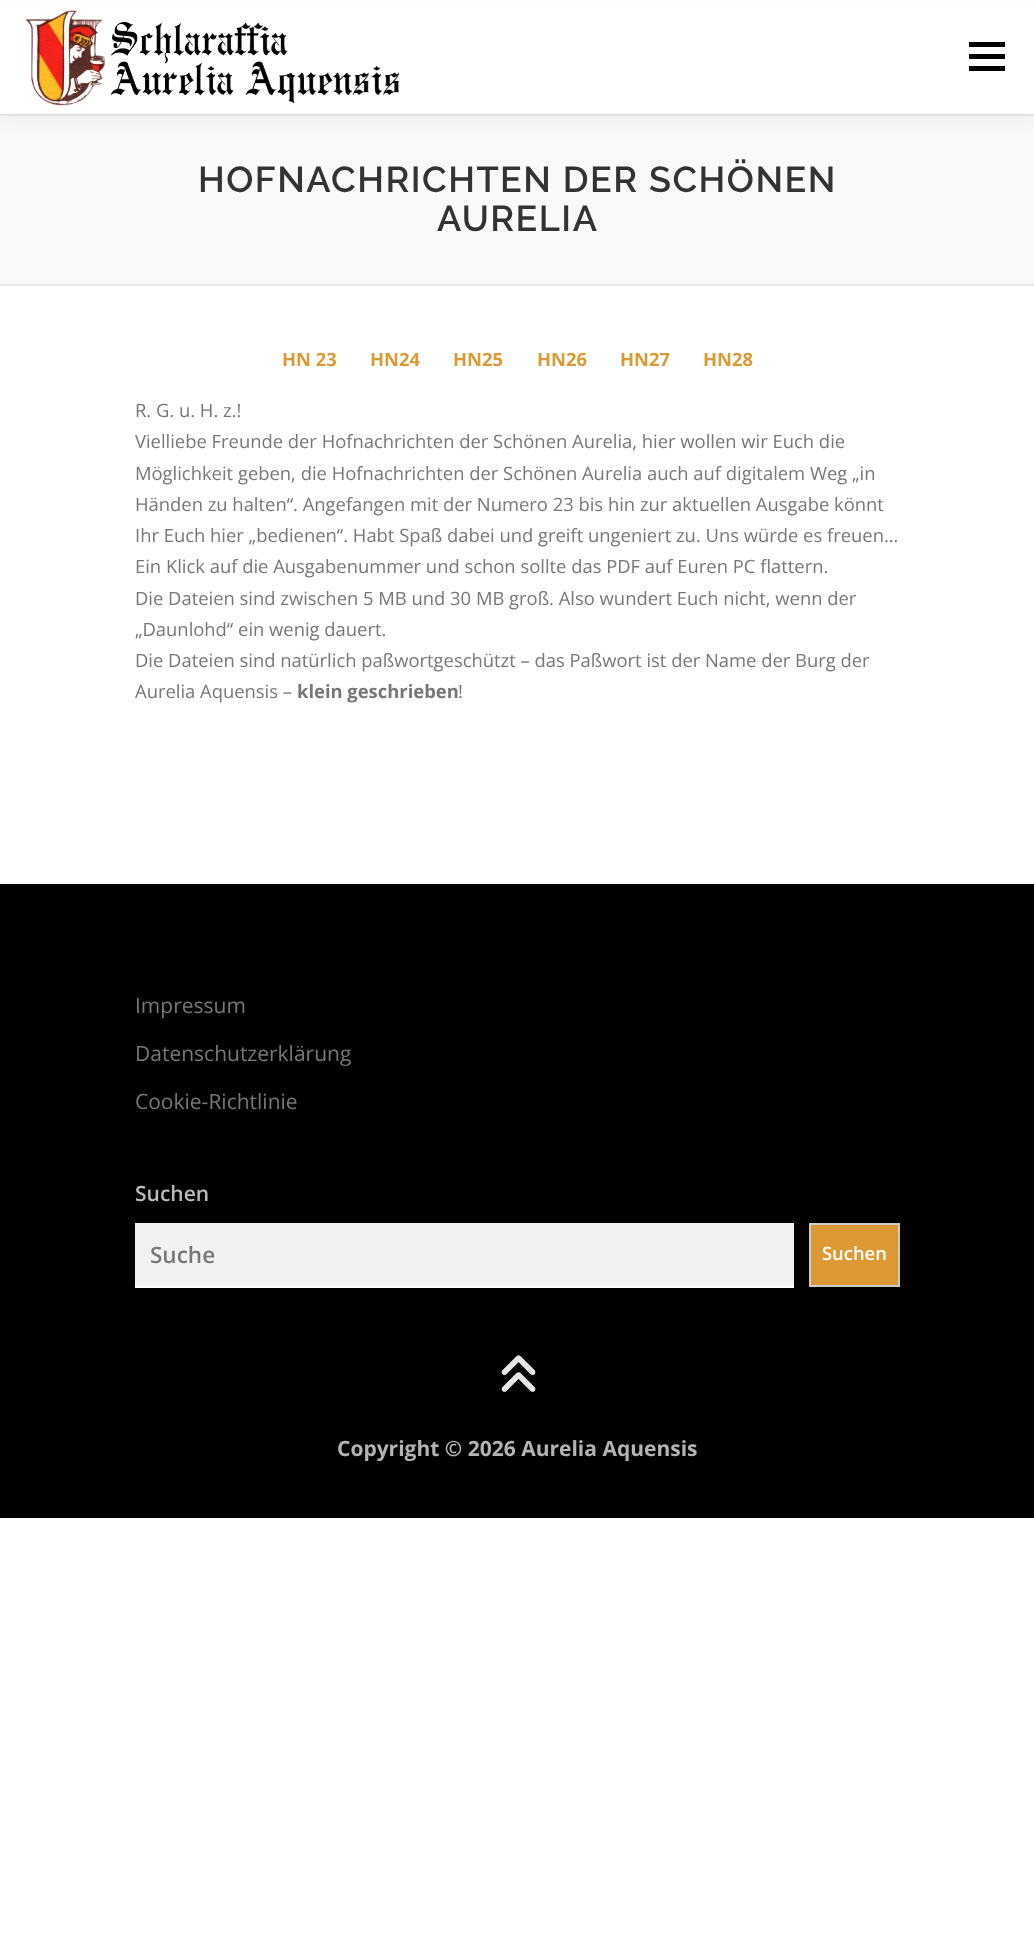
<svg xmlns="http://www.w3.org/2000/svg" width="1034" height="1960">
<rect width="100%" height="100%" fill="#fff"/>
<rect y="116" width="1034" height="168" fill="#f8f9f9"/>
<rect y="114" width="1034" height="2" fill="#e9e9e9"/>
<rect y="8" width="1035" height="112" fill="#3232320f" filter="blur(7.5px)"/>
<rect y="2" width="1034" height="111" fill="#fff"/>
<image x="24" y="10" width="376" height="96" href="media/1.png"/>
<rect x="969" y="54" width="36" height="5" fill="#000"/>
<rect x="969" y="42" width="36" height="5" fill="#000"/>
<rect x="969" y="66" width="36" height="5" fill="#000"/>
<rect y="284" width="1034" height="2" fill="#e9e9e9"/>
<text x="198" y="192" style="font-family:Raleway;font-size:36px;font-weight:600;letter-spacing:1.5px;fill:#333">HOFNACHRICHTEN DER SCHÖNEN</text>
<text x="437" y="231" style="font-family:Raleway;font-size:36px;font-weight:600;letter-spacing:1.5px;fill:#333">AURELIA</text>
<text x="282" y="366" style="font-family:Open Sans;font-size:18.4px;font-weight:bold;fill:#d93">HN 23</text>
<text x="370" y="366" style="font-family:Open Sans;font-size:18.4px;font-weight:bold;fill:#d93">HN24</text>
<text x="453" y="366" style="font-family:Open Sans;font-size:18.4px;font-weight:bold;fill:#d93">HN25</text>
<text x="537" y="366" style="font-family:Open Sans;font-size:18.4px;font-weight:bold;fill:#d93">HN26</text>
<text x="620" y="366" style="font-family:Open Sans;font-size:18.4px;font-weight:bold;fill:#d93">HN27</text>
<text x="703" y="366" style="font-family:Open Sans;font-size:18.4px;font-weight:bold;fill:#d93">HN28</text>
<text x="135" y="417" style="font-family:Open Sans;font-size:18.4px;fill:#777">R. G. u. H. z.!</text>
<text x="135" y="448" style="font-family:Open Sans;font-size:18.4px;fill:#777">Vielliebe Freunde der Hofnachrichten der Schönen Aurelia, hier wollen wir Euch die</text>
<text x="135" y="480" style="font-family:Open Sans;font-size:18.4px;fill:#777">Möglichkeit geben, die Hofnachrichten der Schönen Aurelia auch auf digitalem Weg „in</text>
<text x="135" y="511" style="font-family:Open Sans;font-size:18.4px;fill:#777">Händen zu halten“. Angefangen mit der Numero 23 bis hin zur aktuellen Ausgabe könnt</text>
<text x="135" y="542" style="font-family:Open Sans;font-size:18.4px;fill:#777">Ihr Euch hier „bedienen“. Habt Spaß dabei und greift ungeniert zu. Uns würde es freuen…</text>
<text x="135" y="573" style="font-family:Open Sans;font-size:18.4px;fill:#777">Ein Klick auf die Ausgabenummer und schon sollte das PDF auf Euren PC flattern.</text>
<text x="135" y="605" style="font-family:Open Sans;font-size:18.4px;fill:#777">Die Dateien sind zwischen 5 MB und 30 MB groß. Also wundert Euch nicht, wenn der</text>
<text x="135" y="636" style="font-family:Open Sans;font-size:18.4px;fill:#777">„Daunlohd“ ein wenig dauert.</text>
<text x="135" y="667" style="font-family:Open Sans;font-size:18.4px;fill:#777">Die Dateien sind natürlich paßwortgeschützt – das Paßwort ist der Name der Burg der</text>
<text x="135" y="698" style="font-family:Open Sans;font-size:18.4px;fill:#777">Aurelia Aquensis –</text>
<text x="297" y="698" style="font-family:Open Sans;font-size:18.4px;font-weight:bold;fill:#777">klein geschrieben</text>
<text x="458" y="698" style="font-family:Open Sans;font-size:18.4px;fill:#777">!</text>
<rect y="884" width="1034" height="634" fill="#000"/>
<text x="135" y="1013" style="font-family:Open Sans;font-size:21px;fill:#777">Impressum</text>
<text x="135" y="1061" style="font-family:Open Sans;font-size:21px;fill:#777">Datenschutzerklärung</text>
<text x="135" y="1109" style="font-family:Open Sans;font-size:21px;fill:#777">Cookie-Richtlinie</text>
<text x="135" y="1201" style="font-family:Open Sans;font-size:21px;font-weight:600;fill:#bbb">Suchen</text>
<rect x="135" y="1223" width="659" height="63" fill="#f2f2f2"/>
<rect x="135" y="1286" width="659" height="2" fill="#fff"/>
<text x="150" y="1263" style="font-family:Open Sans;font-size:22.5px;font-weight:600;fill:#777">Suche</text>
<rect x="810" y="1224" width="89" height="62" fill="#d93" stroke="#ccc" stroke-width="2"/>
<text x="822" y="1260" style="font-family:Open Sans;font-size:18.4px;font-weight:600;fill:#fff">Suchen</text>
<image x="501" y="1355" width="35" height="37" href="media/2.png"/>
<text x="337" y="1456" style="font-family:Open Sans;font-size:21px;font-weight:bold;fill:#b3b3b3">Copyright © 2026 Aurelia Aquensis</text>
</svg>
